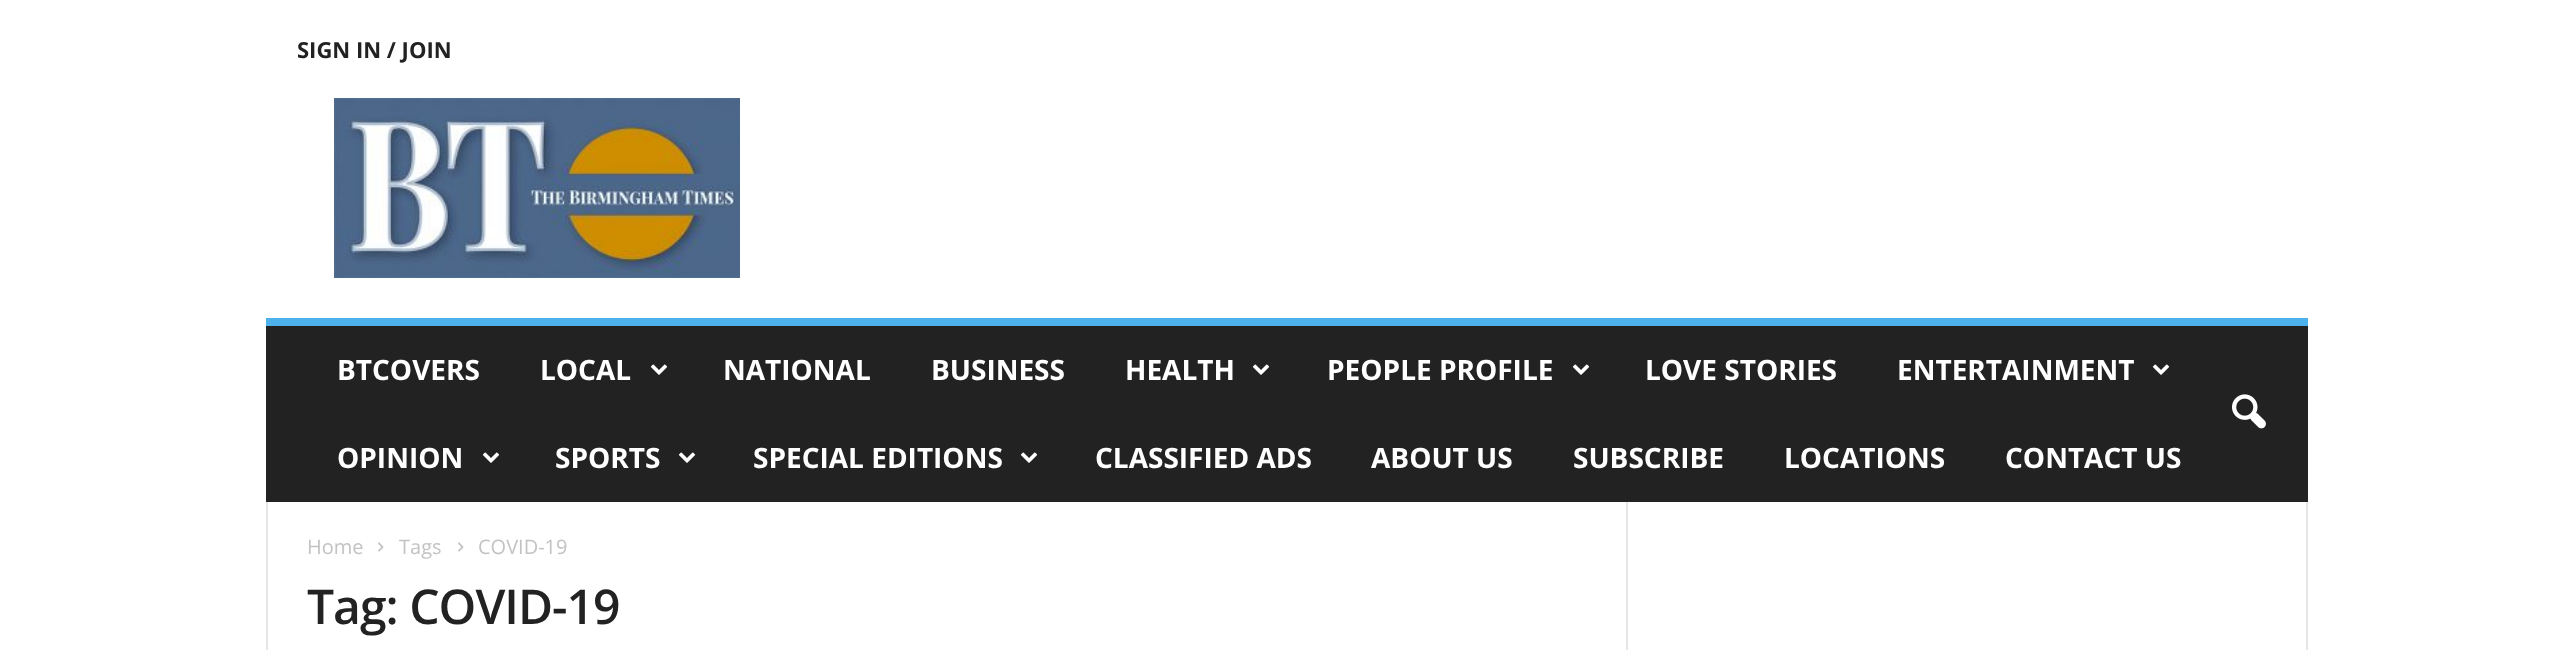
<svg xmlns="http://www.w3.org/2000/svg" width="2572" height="650">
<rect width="100%" height="100%" fill="#fff"/>
<text x="297" y="58" style="font-family:Open Sans;font-size:22px;font-weight:bold;fill:#222">SIGN IN / JOIN</text>
<image x="334" y="98" width="406" height="180" href="media/1.png"/>
<rect x="266" y="326" width="2042" height="176" fill="#222"/>
<rect x="266" y="318" width="2042" height="8" fill="#4db2ec"/>
<text x="337" y="380" style="font-family:Open Sans;font-size:28px;font-weight:bold;fill:#fff">BTCOVERS</text>
<text x="540" y="380" style="font-family:Open Sans;font-size:28px;font-weight:bold;fill:#fff">LOCAL</text>
<image x="650" y="364" width="18" height="11" href="media/2.png"/>
<text x="723" y="380" style="font-family:Open Sans;font-size:28px;font-weight:bold;fill:#fff">NATIONAL</text>
<text x="931" y="380" style="font-family:Open Sans;font-size:28px;font-weight:bold;fill:#fff">BUSINESS</text>
<text x="1125" y="380" style="font-family:Open Sans;font-size:28px;font-weight:bold;fill:#fff">HEALTH</text>
<image x="1252" y="364" width="18" height="11" href="media/2.png"/>
<text x="1327" y="380" style="font-family:Open Sans;font-size:28px;font-weight:bold;fill:#fff">PEOPLE PROFILE</text>
<image x="1572" y="364" width="18" height="11" href="media/2.png"/>
<text x="1645" y="380" style="font-family:Open Sans;font-size:28px;font-weight:bold;fill:#fff">LOVE STORIES</text>
<text x="1897" y="380" style="font-family:Open Sans;font-size:28px;font-weight:bold;fill:#fff">ENTERTAINMENT</text>
<image x="2152" y="364" width="18" height="11" href="media/2.png"/>
<text x="337" y="468" style="font-family:Open Sans;font-size:28px;font-weight:bold;fill:#fff">OPINION</text>
<image x="482" y="452" width="18" height="11" href="media/2.png"/>
<text x="555" y="468" style="font-family:Open Sans;font-size:28px;font-weight:bold;fill:#fff">SPORTS</text>
<image x="678" y="452" width="18" height="11" href="media/2.png"/>
<text x="753" y="468" style="font-family:Open Sans;font-size:28px;font-weight:bold;fill:#fff">SPECIAL EDITIONS</text>
<image x="1020" y="452" width="18" height="11" href="media/2.png"/>
<text x="1095" y="468" style="font-family:Open Sans;font-size:28px;font-weight:bold;fill:#fff">CLASSIFIED ADS</text>
<text x="1371" y="468" style="font-family:Open Sans;font-size:28px;font-weight:bold;fill:#fff">ABOUT US</text>
<text x="1573" y="468" style="font-family:Open Sans;font-size:28px;font-weight:bold;fill:#fff">SUBSCRIBE</text>
<text x="1784" y="468" style="font-family:Open Sans;font-size:28px;font-weight:bold;fill:#fff">LOCATIONS</text>
<text x="2005" y="468" style="font-family:Open Sans;font-size:28px;font-weight:bold;fill:#fff">CONTACT US</text>
<image x="2232" y="394" width="34" height="35" href="media/3.png"/>
<rect x="266" y="502" width="2" height="148" fill="#e6e6e6"/>
<text x="307" y="554" style="font-family:Open Sans;font-size:20px;fill:#c3c3c3">Home</text>
<image x="378" y="542" width="6" height="10" href="media/4.png"/>
<text x="399" y="554" style="font-family:Open Sans;font-size:20px;fill:#c3c3c3">Tags</text>
<image x="458" y="542" width="6" height="10" href="media/4.png"/>
<text x="478" y="554" style="font-family:Open Sans;font-size:20px;fill:#c3c3c3">COVID-19</text>
<text x="307" y="624" style="font-family:Open Sans;font-size:48px;font-weight:600;letter-spacing:-1px;fill:#222">Tag: COVID-19</text>
<rect x="1626" y="502" width="2" height="148" fill="#e6e6e6"/>
<rect x="2306" y="502" width="2" height="148" fill="#e6e6e6"/>
</svg>
